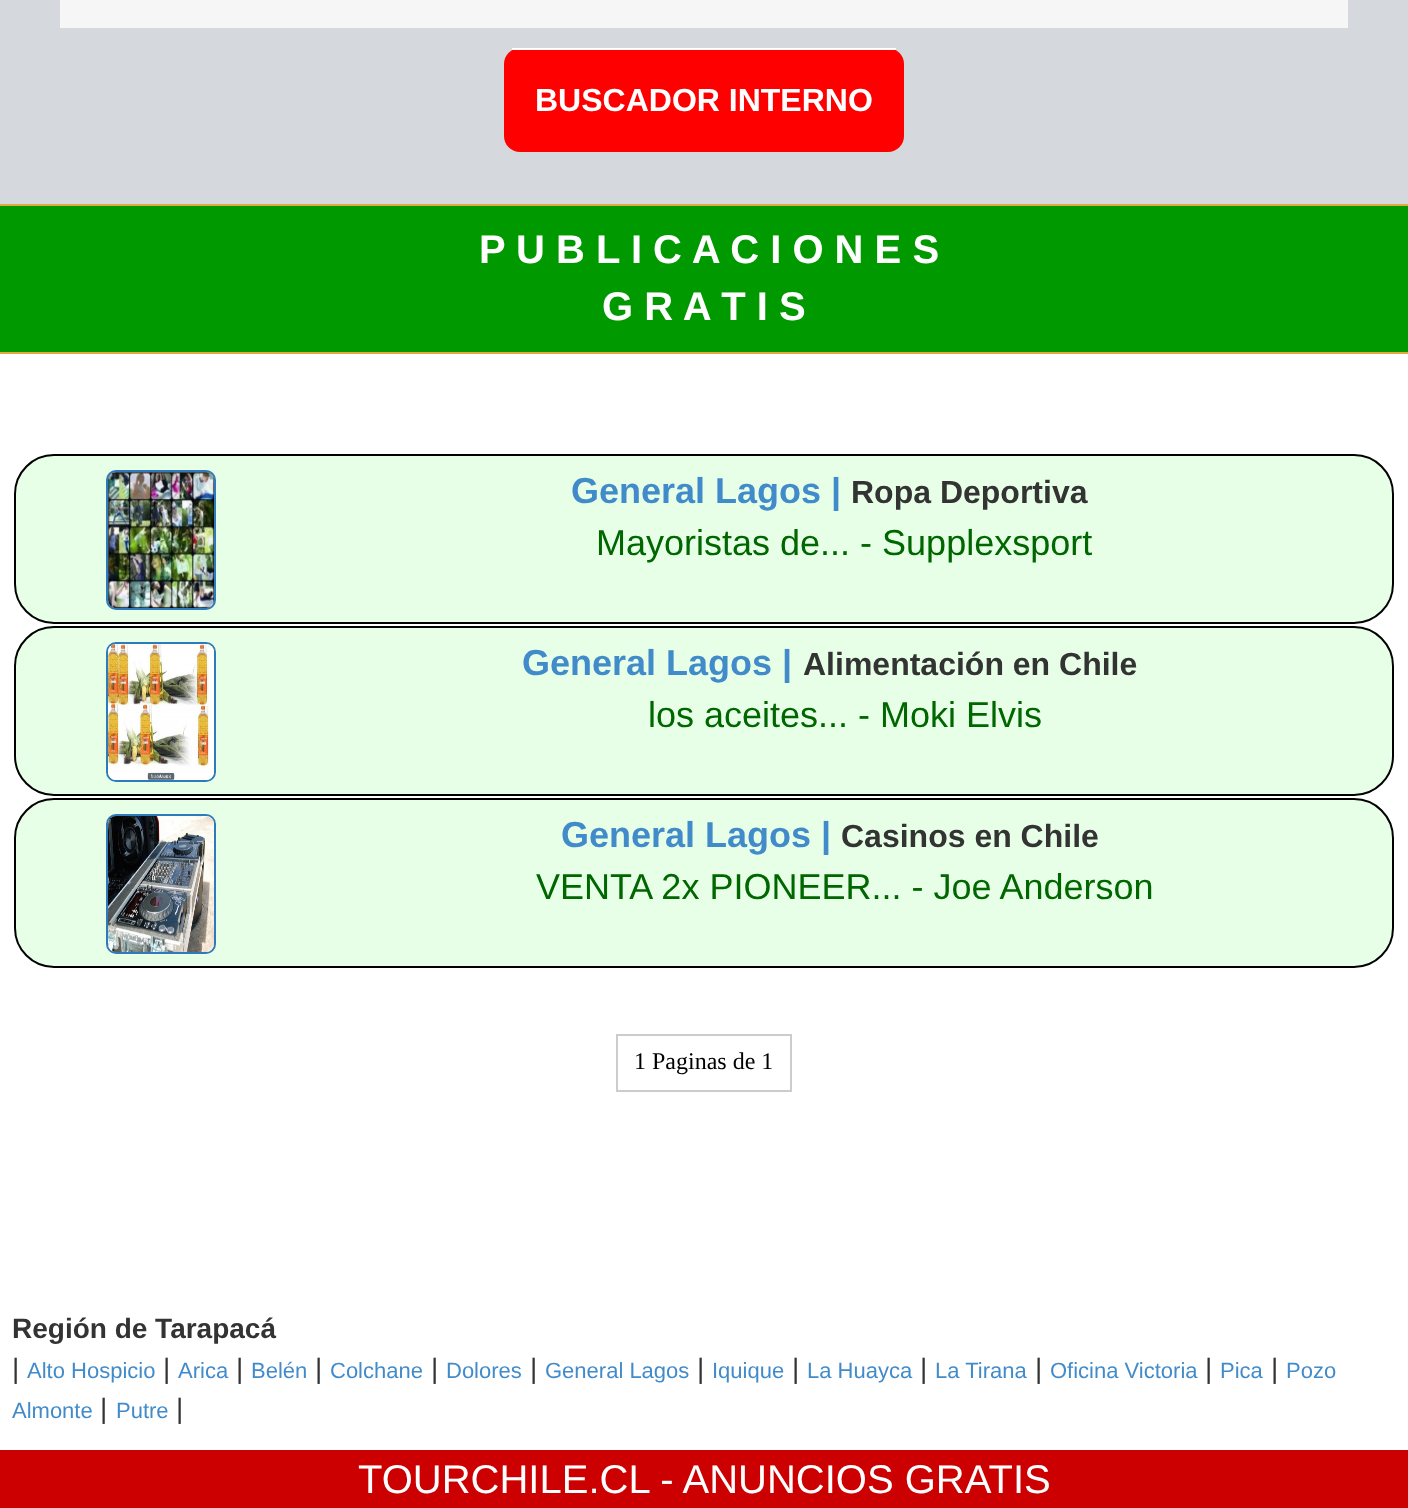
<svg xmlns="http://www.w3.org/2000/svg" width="1408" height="1508">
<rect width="100%" height="100%" fill="#fff"/>
<rect width="1408" height="204" fill="#d5d8dc"/>
<rect x="60" width="1288" height="28" fill="#f6f6f6"/>
<rect x="504" y="48" width="400" height="104" rx="16" fill="#f00"/>
<rect x="512" y="48" width="384" height="2" fill="#fff"/>
<text x="535" y="111" style="font-family:Liberation Sans;font-size:32px;font-weight:bold;fill:#fff">BUSCADOR INTERNO</text>
<rect y="206" width="1408" height="146" fill="#090"/>
<rect y="204" width="1408" height="2" fill="#e4a93c"/>
<rect y="352" width="1408" height="2" fill="#e4a93c"/>
<text x="479" y="263" style="font-family:Liberation Sans;font-size:40px;font-weight:bold;fill:#fff">P U B L I C A C I O N E S</text>
<text x="602" y="320" style="font-family:Liberation Sans;font-size:40px;font-weight:bold;fill:#fff">G R A T I S</text>
<rect x="15" y="455" width="1378" height="168" rx="39" fill="#e6ffe6" stroke="#000" stroke-width="2"/>
<rect x="107" y="471" width="108" height="138" rx="9" fill="none" stroke="#2f7abb" stroke-width="2"/>
<image x="108" y="472" width="106" height="136" href="media/1.png"/>
<text x="571" y="503" style="font-family:Liberation Sans;font-size:36px;font-weight:bold;fill:#428bca">General Lagos |</text>
<text x="851" y="503" style="font-family:Liberation Sans;font-size:32px;font-weight:bold;fill:#333">Ropa Deportiva</text>
<text x="596" y="555" style="font-family:Liberation Sans;font-size:36px;fill:#060">Mayoristas de... - Supplexsport</text>
<rect x="15" y="627" width="1378" height="168" rx="39" fill="#e6ffe6" stroke="#000" stroke-width="2"/>
<rect x="107" y="643" width="108" height="138" rx="9" fill="none" stroke="#2f7abb" stroke-width="2"/>
<image x="108" y="644" width="106" height="136" href="media/2.png"/>
<text x="522" y="675" style="font-family:Liberation Sans;font-size:36px;font-weight:bold;fill:#428bca">General Lagos |</text>
<text x="803" y="675" style="font-family:Liberation Sans;font-size:32px;font-weight:bold;fill:#333">Alimentación en Chile</text>
<text x="648" y="727" style="font-family:Liberation Sans;font-size:36px;fill:#060">los aceites... - Moki Elvis</text>
<rect x="15" y="799" width="1378" height="168" rx="39" fill="#e6ffe6" stroke="#000" stroke-width="2"/>
<rect x="107" y="815" width="108" height="138" rx="9" fill="none" stroke="#2f7abb" stroke-width="2"/>
<image x="108" y="816" width="106" height="136" href="media/3.png"/>
<text x="561" y="847" style="font-family:Liberation Sans;font-size:36px;font-weight:bold;fill:#428bca">General Lagos |</text>
<text x="841" y="847" style="font-family:Liberation Sans;font-size:32px;font-weight:bold;fill:#333">Casinos en Chile</text>
<text x="536" y="899" style="font-family:Liberation Sans;font-size:36px;fill:#060">VENTA 2x PIONEER... - Joe Anderson</text>
<rect x="617" y="1035" width="174" height="56" fill="none" stroke="#ccc" stroke-width="2"/>
<text x="634" y="1069" style="font-family:Liberation Serif;font-size:24px;fill:#000">1 Paginas de 1</text>
<text x="12" y="1338" style="font-family:Liberation Sans;font-size:28px;font-weight:bold;fill:#333">Región de Tarapacá</text>
<text x="12" y="1378" style="font-family:Liberation Sans;font-size:28px;fill:#333">|</text>
<text x="27" y="1378" style="font-family:Liberation Sans;font-size:22px;fill:#428bca">Alto Hospicio</text>
<text x="163" y="1378" style="font-family:Liberation Sans;font-size:28px;fill:#333">|</text>
<text x="178" y="1378" style="font-family:Liberation Sans;font-size:22px;fill:#428bca">Arica</text>
<text x="236" y="1378" style="font-family:Liberation Sans;font-size:28px;fill:#333">|</text>
<text x="251" y="1378" style="font-family:Liberation Sans;font-size:22px;fill:#428bca">Belén</text>
<text x="315" y="1378" style="font-family:Liberation Sans;font-size:28px;fill:#333">|</text>
<text x="330" y="1378" style="font-family:Liberation Sans;font-size:22px;fill:#428bca">Colchane</text>
<text x="431" y="1378" style="font-family:Liberation Sans;font-size:28px;fill:#333">|</text>
<text x="446" y="1378" style="font-family:Liberation Sans;font-size:22px;fill:#428bca">Dolores</text>
<text x="530" y="1378" style="font-family:Liberation Sans;font-size:28px;fill:#333">|</text>
<text x="545" y="1378" style="font-family:Liberation Sans;font-size:22px;fill:#428bca">General Lagos</text>
<text x="697" y="1378" style="font-family:Liberation Sans;font-size:28px;fill:#333">|</text>
<text x="712" y="1378" style="font-family:Liberation Sans;font-size:22px;fill:#428bca">Iquique</text>
<text x="792" y="1378" style="font-family:Liberation Sans;font-size:28px;fill:#333">|</text>
<text x="807" y="1378" style="font-family:Liberation Sans;font-size:22px;fill:#428bca">La Huayca</text>
<text x="920" y="1378" style="font-family:Liberation Sans;font-size:28px;fill:#333">|</text>
<text x="935" y="1378" style="font-family:Liberation Sans;font-size:22px;fill:#428bca">La Tirana</text>
<text x="1035" y="1378" style="font-family:Liberation Sans;font-size:28px;fill:#333">|</text>
<text x="1050" y="1378" style="font-family:Liberation Sans;font-size:22px;fill:#428bca">Oficina Victoria</text>
<text x="1205" y="1378" style="font-family:Liberation Sans;font-size:28px;fill:#333">|</text>
<text x="1220" y="1378" style="font-family:Liberation Sans;font-size:22px;fill:#428bca">Pica</text>
<text x="1271" y="1378" style="font-family:Liberation Sans;font-size:28px;fill:#333">|</text>
<text x="1286" y="1378" style="font-family:Liberation Sans;font-size:22px;fill:#428bca">Pozo</text>
<text x="12" y="1418" style="font-family:Liberation Sans;font-size:22px;fill:#428bca">Almonte</text>
<text x="100" y="1418" style="font-family:Liberation Sans;font-size:28px;fill:#333">|</text>
<text x="116" y="1418" style="font-family:Liberation Sans;font-size:22px;fill:#428bca">Putre</text>
<text x="176" y="1418" style="font-family:Liberation Sans;font-size:28px;fill:#333">|</text>
<rect y="1450" width="1408" height="58" fill="#c00"/>
<text x="358" y="1493" style="font-family:Liberation Sans;font-size:40px;fill:#fff">TOURCHILE.CL - ANUNCIOS GRATIS</text>
</svg>
